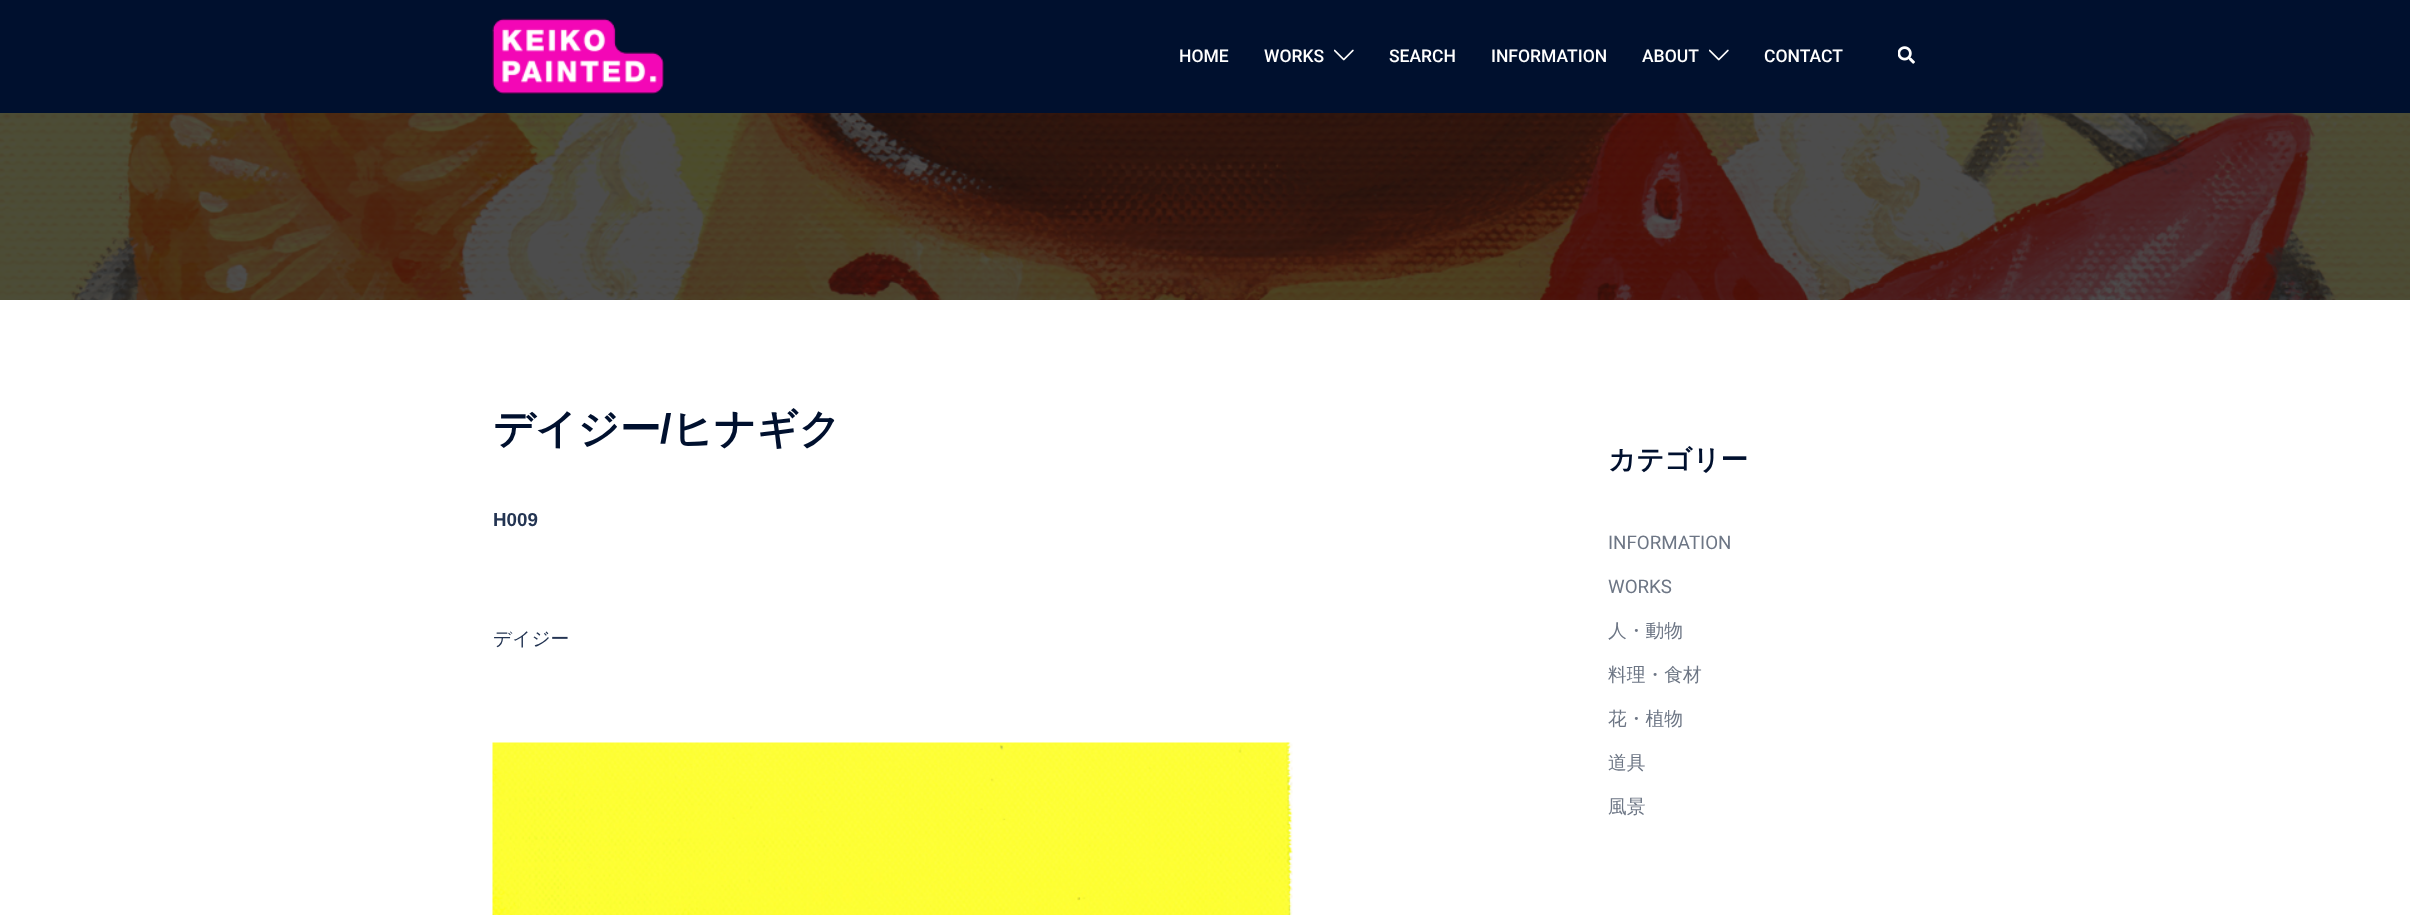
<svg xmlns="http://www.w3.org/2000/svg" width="2410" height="915">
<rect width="100%" height="100%" fill="#fff"/>
<rect width="2410" height="113" fill="#00102e"/>
<image x="492" y="18" width="172" height="76" href="media/1.png"/>
<text x="1179" y="62" style="font-family:Roboto;font-size:17.5px;font-weight:500;fill:#fff">HOME</text>
<text x="1264" y="62" style="font-family:Roboto;font-size:17.5px;font-weight:500;fill:#fff">WORKS</text>
<image x="1334" y="49" width="20" height="12" href="media/2.png"/>
<text x="1389" y="62" style="font-family:Roboto;font-size:17.5px;font-weight:500;fill:#fff">SEARCH</text>
<text x="1491" y="62" style="font-family:Roboto;font-size:17.5px;font-weight:500;fill:#fff">INFORMATION</text>
<text x="1642" y="62" style="font-family:Roboto;font-size:17.5px;font-weight:500;fill:#fff">ABOUT</text>
<image x="1709" y="49" width="20" height="12" href="media/2.png"/>
<text x="1764" y="62" style="font-family:Roboto;font-size:17.5px;font-weight:500;fill:#fff">CONTACT</text>
<image x="1898" y="46" width="17" height="18" href="media/3.png"/>
<image x="0" y="113" width="2410" height="187" href="media/4.png"/>
<text x="493" y="443" style="font-family:WenQuanYi Zen Hei;font-size:41.25px;font-weight:bold;fill:#00102e">デイジー</text>
<text x="660" y="443" style="font-family:Liberation Sans;font-size:41.25px;font-weight:bold;fill:#00102e">/</text>
<text x="672" y="443" style="font-family:WenQuanYi Zen Hei;font-size:41.25px;font-weight:bold;fill:#00102e">ヒナギク</text>
<text x="493" y="526" style="font-family:Liberation Sans;font-size:18.75px;font-weight:bold;fill:#233452">H009</text>
<text x="493" y="645" style="font-family:WenQuanYi Zen Hei;font-size:18.75px;font-weight:500;fill:#233452">デイジー</text>
<image x="492" y="742" width="801" height="173" href="media/5.png"/>
<text x="1608" y="469" style="font-family:WenQuanYi Zen Hei;font-size:27.5px;font-weight:bold;fill:#00102e">カテゴリー</text>
<text x="1608" y="549" style="font-family:Roboto;font-size:18.75px;fill:#6d7685">INFORMATION</text>
<text x="1608" y="593" style="font-family:Roboto;font-size:18.75px;fill:#6d7685">WORKS</text>
<text x="1608" y="637" style="font-family:WenQuanYi Zen Hei;font-size:18.75px;font-weight:500;fill:#6d7685">人・動物</text>
<text x="1608" y="681" style="font-family:WenQuanYi Zen Hei;font-size:18.75px;font-weight:500;fill:#6d7685">料理・食材</text>
<text x="1608" y="725" style="font-family:WenQuanYi Zen Hei;font-size:18.75px;font-weight:500;fill:#6d7685">花・植物</text>
<text x="1608" y="769" style="font-family:WenQuanYi Zen Hei;font-size:18.75px;font-weight:500;fill:#6d7685">道具</text>
<text x="1608" y="813" style="font-family:WenQuanYi Zen Hei;font-size:18.75px;font-weight:500;fill:#6d7685">風景</text>
</svg>
